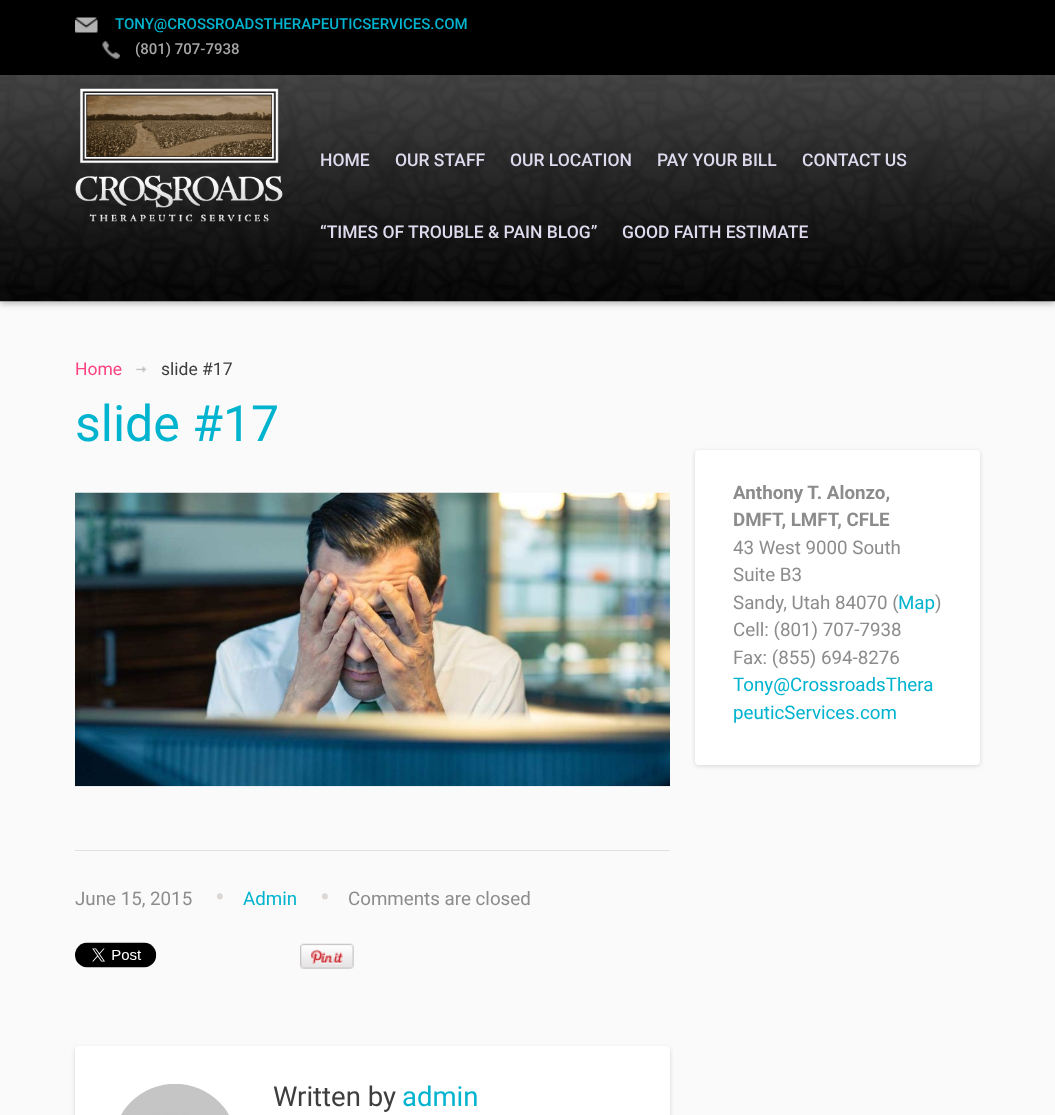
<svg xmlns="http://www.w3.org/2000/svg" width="1055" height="1115">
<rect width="100%" height="100%" fill="#fafafa"/>
<rect y="3" width="1055" height="301" fill="#00000040" filter="blur(3px)"/>
<image x="0" y="75" width="1055" height="227" href="media/1.png"/>
<rect width="1055" height="75" fill="#000"/>
<image x="75" y="17" width="23" height="16" href="media/2.png"/>
<text x="115" y="29" style="font-family:Roboto;font-size:15px;font-weight:500;fill:#00b3ce">TONY@CROSSROADSTHERAPEUTICSERVICES.COM</text>
<image x="102" y="41" width="18" height="18" href="media/3.png"/>
<text x="135" y="54" style="font-family:Roboto;font-size:15px;font-weight:500;fill:#a6a6a6">(801) 707-7938</text>
<image x="75" y="88" width="208" height="134" href="media/4.png"/>
<text x="320" y="166" style="font-family:Roboto;font-size:17.5px;font-weight:500;fill:#dfdaed">HOME</text>
<text x="395" y="166" style="font-family:Roboto;font-size:17.5px;font-weight:500;fill:#dfdaed">OUR STAFF</text>
<text x="510" y="166" style="font-family:Roboto;font-size:17.5px;font-weight:500;fill:#dfdaed">OUR LOCATION</text>
<text x="657" y="166" style="font-family:Roboto;font-size:17.5px;font-weight:500;fill:#dfdaed">PAY YOUR BILL</text>
<text x="802" y="166" style="font-family:Roboto;font-size:17.5px;font-weight:500;fill:#dfdaed">CONTACT US</text>
<text x="320" y="238" style="font-family:Roboto;font-size:17.5px;font-weight:500;fill:#dfdaed">“TIMES OF TROUBLE &amp; PAIN BLOG”</text>
<text x="622" y="238" style="font-family:Roboto;font-size:17.5px;font-weight:500;fill:#dfdaed">GOOD FAITH ESTIMATE</text>
<text x="75" y="375" style="font-family:Roboto;font-size:17.5px;fill:#fb4381">Home</text>
<image x="136" y="366" width="11" height="7" href="media/5.png"/>
<text x="161" y="375" style="font-family:Roboto;font-size:17.5px;fill:#3e3e3e">slide #17</text>
<text x="75" y="441" style="font-family:Roboto;font-size:50px;fill:#00b3ce">slide #17</text>
<image x="75" y="492" width="595" height="295" href="media/6.png"/>
<rect x="75" y="850" width="595" height="1" fill="#e1e1e1"/>
<text x="75" y="905" style="font-family:Roboto;font-size:18.75px;fill:#8c8c8c">June 15, 2015</text>
<text x="215" y="907" style="font-family:Roboto;font-size:29px;fill:#dbd8d6">•</text>
<text x="243" y="905" style="font-family:Roboto;font-size:18.75px;fill:#00b3ce">Admin</text>
<text x="320" y="907" style="font-family:Roboto;font-size:29px;fill:#dbd8d6">•</text>
<text x="348" y="905" style="font-family:Roboto;font-size:18.75px;fill:#8c8c8c">Comments are closed</text>
<image x="75" y="942" width="82" height="26" href="media/7.png"/>
<image x="300" y="943" width="54" height="26" href="media/8.png"/>
<rect x="75" y="1048" width="595" height="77" rx="4" fill="#00000026" filter="blur(2px)"/>
<rect x="75" y="1046" width="595" height="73" rx="4" fill="#fff"/>
<image x="121" y="1084" width="108" height="31" href="media/9.png"/>
<text x="273" y="1106" style="font-family:Roboto;font-size:27.5px;fill:#3e3e3e">Written by</text>
<text x="402" y="1106" style="font-family:Roboto;font-size:27.5px;fill:#00b3ce">admin</text>
<rect x="695" y="451" width="285" height="315" rx="4" fill="#00000026" filter="blur(2px)"/>
<rect x="695" y="450" width="285" height="315" rx="4" fill="#fff"/>
<text x="733" y="499" style="font-family:Roboto;font-size:18.75px;font-weight:bold;fill:#8c8c8c">Anthony T. Alonzo,</text>
<text x="733" y="526" style="font-family:Roboto;font-size:18.75px;font-weight:bold;fill:#8c8c8c">DMFT, LMFT, CFLE</text>
<text x="733" y="554" style="font-family:Roboto;font-size:18.75px;fill:#8c8c8c">43 West 9000 South</text>
<text x="733" y="581" style="font-family:Roboto;font-size:18.75px;fill:#8c8c8c">Suite B3</text>
<text x="733" y="609" style="font-family:Roboto;font-size:18.75px;fill:#8c8c8c">Sandy, Utah 84070 (</text>
<text x="898" y="609" style="font-family:Roboto;font-size:18.75px;fill:#00b3ce">Map</text>
<text x="935" y="609" style="font-family:Roboto;font-size:18.75px;fill:#8c8c8c">)</text>
<text x="733" y="636" style="font-family:Roboto;font-size:18.75px;fill:#8c8c8c">Cell: (801) 707-7938</text>
<text x="733" y="664" style="font-family:Roboto;font-size:18.75px;fill:#8c8c8c">Fax: (855) 694-8276</text>
<text x="733" y="691" style="font-family:Roboto;font-size:18.75px;fill:#00b3ce">Tony@CrossroadsThera</text>
<text x="733" y="719" style="font-family:Roboto;font-size:18.75px;fill:#00b3ce">peuticServices.com</text>
</svg>
